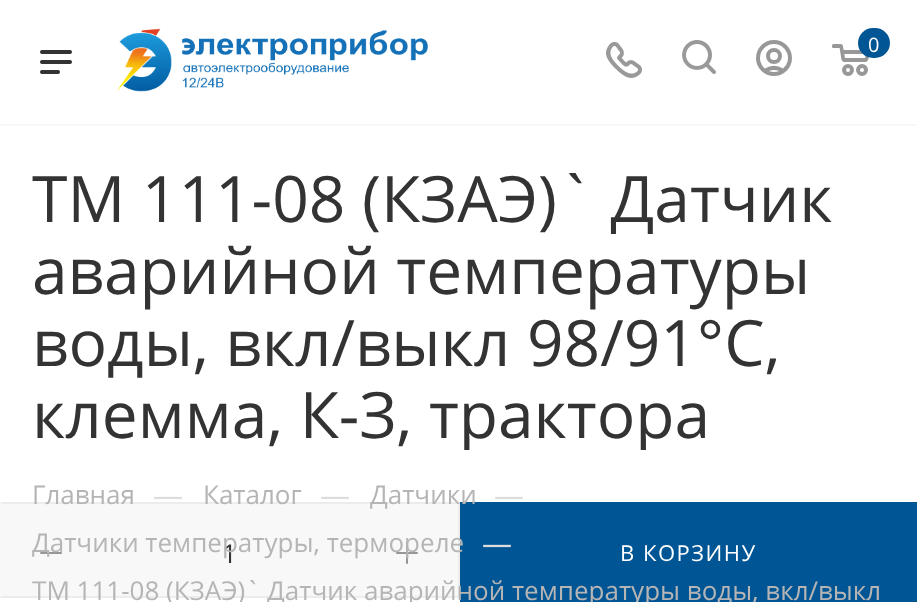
<svg xmlns="http://www.w3.org/2000/svg" width="917" height="602">
<defs>
<clipPath id="clip1"><rect x="32" y="162" width="854" height="288"/></clipPath>
</defs>
<rect width="100%" height="100%" fill="#fff"/>
<rect y="124" width="917" height="2" fill="#f8f8f8"/>
<image x="116" y="28" width="312" height="64" href="media/1.png"/>
<image x="606" y="42" width="36" height="36" href="media/2.png"/>
<image x="682" y="40" width="34" height="34" href="media/3.png"/>
<image x="756" y="40" width="36" height="36" href="media/4.png"/>
<image x="832" y="44" width="37" height="32" href="media/5.png"/>
<rect x="858" y="28" width="32" height="30" rx="15" fill="#005595"/>
<text x="868" y="52" style="font-family:Open Sans;font-size:20px;fill:#fff">0</text>
<image x="40" y="50" width="32" height="24" href="media/6.png"/>
<text x="32" y="222" style="font-family:Open Sans;font-size:64px;fill:#333">ТМ 111-08 (КЗАЭ)` Датчик</text>
<text x="32" y="294" style="font-family:Open Sans;font-size:64px;fill:#333">аварийной температуры</text>
<text x="32" y="366" style="font-family:Open Sans;font-size:64px;fill:#333">воды, вкл/выкл 98/91°С,</text>
<g clip-path="url(#clip1)">
<text x="32" y="438" style="font-family:Open Sans;font-size:64px;fill:#333">клемма, К-З, трактора</text>
</g>
<rect y="502" width="458" height="96" fill="#f8f8f8"/>
<path d="M0 502h460l-2 2h-456z" fill="#ececec"/>
<text x="32" y="504" style="font-family:Open Sans;font-size:26px;fill:#b6b5b5">Главная</text>
<text x="153" y="506" style="font-family:Open Sans;font-size:30px;fill:#ddd">—</text>
<text x="203" y="504" style="font-family:Open Sans;font-size:26px;fill:#b6b5b5">Каталог</text>
<text x="320" y="506" style="font-family:Open Sans;font-size:30px;fill:#ddd">—</text>
<rect x="458" y="502" width="2" height="96" fill="#ececec"/>
<rect x="460" y="502" width="457" height="100" fill="#005595"/>
<text x="370" y="504" style="font-family:Open Sans;font-size:26px;fill:#b6b5b5">Датчики</text>
<text x="494" y="506" style="font-family:Open Sans;font-size:30px;fill:#ddd">—</text>
<rect x="40" y="552" width="22" height="2" rx="1" fill="#969696"/>
<text x="222" y="563" style="font-family:Open Sans;font-size:26px;fill:#333">1</text>
<image x="396" y="542" width="22" height="22" href="media/7.png"/>
<text x="32" y="552" style="font-family:Open Sans;font-size:26px;fill:#b6b5b5">Датчики температуры, термореле</text>
<text x="482" y="554" style="font-family:Open Sans;font-size:30px;fill:#ddd">—</text>
<path d="M460 598h-460l2-2h456z" fill="#ececec"/>
<text x="32" y="600" style="font-family:Open Sans;font-size:26px;fill:#b6b5b5">ТМ 111-08 (КЗАЭ)` Датчик аварийной температуры воды, вкл/выкл</text>
<text x="620" y="561" style="font-family:Open Sans;font-size:22px;letter-spacing:1.5px;fill:#fff">В КОРЗИНУ</text>
</svg>
